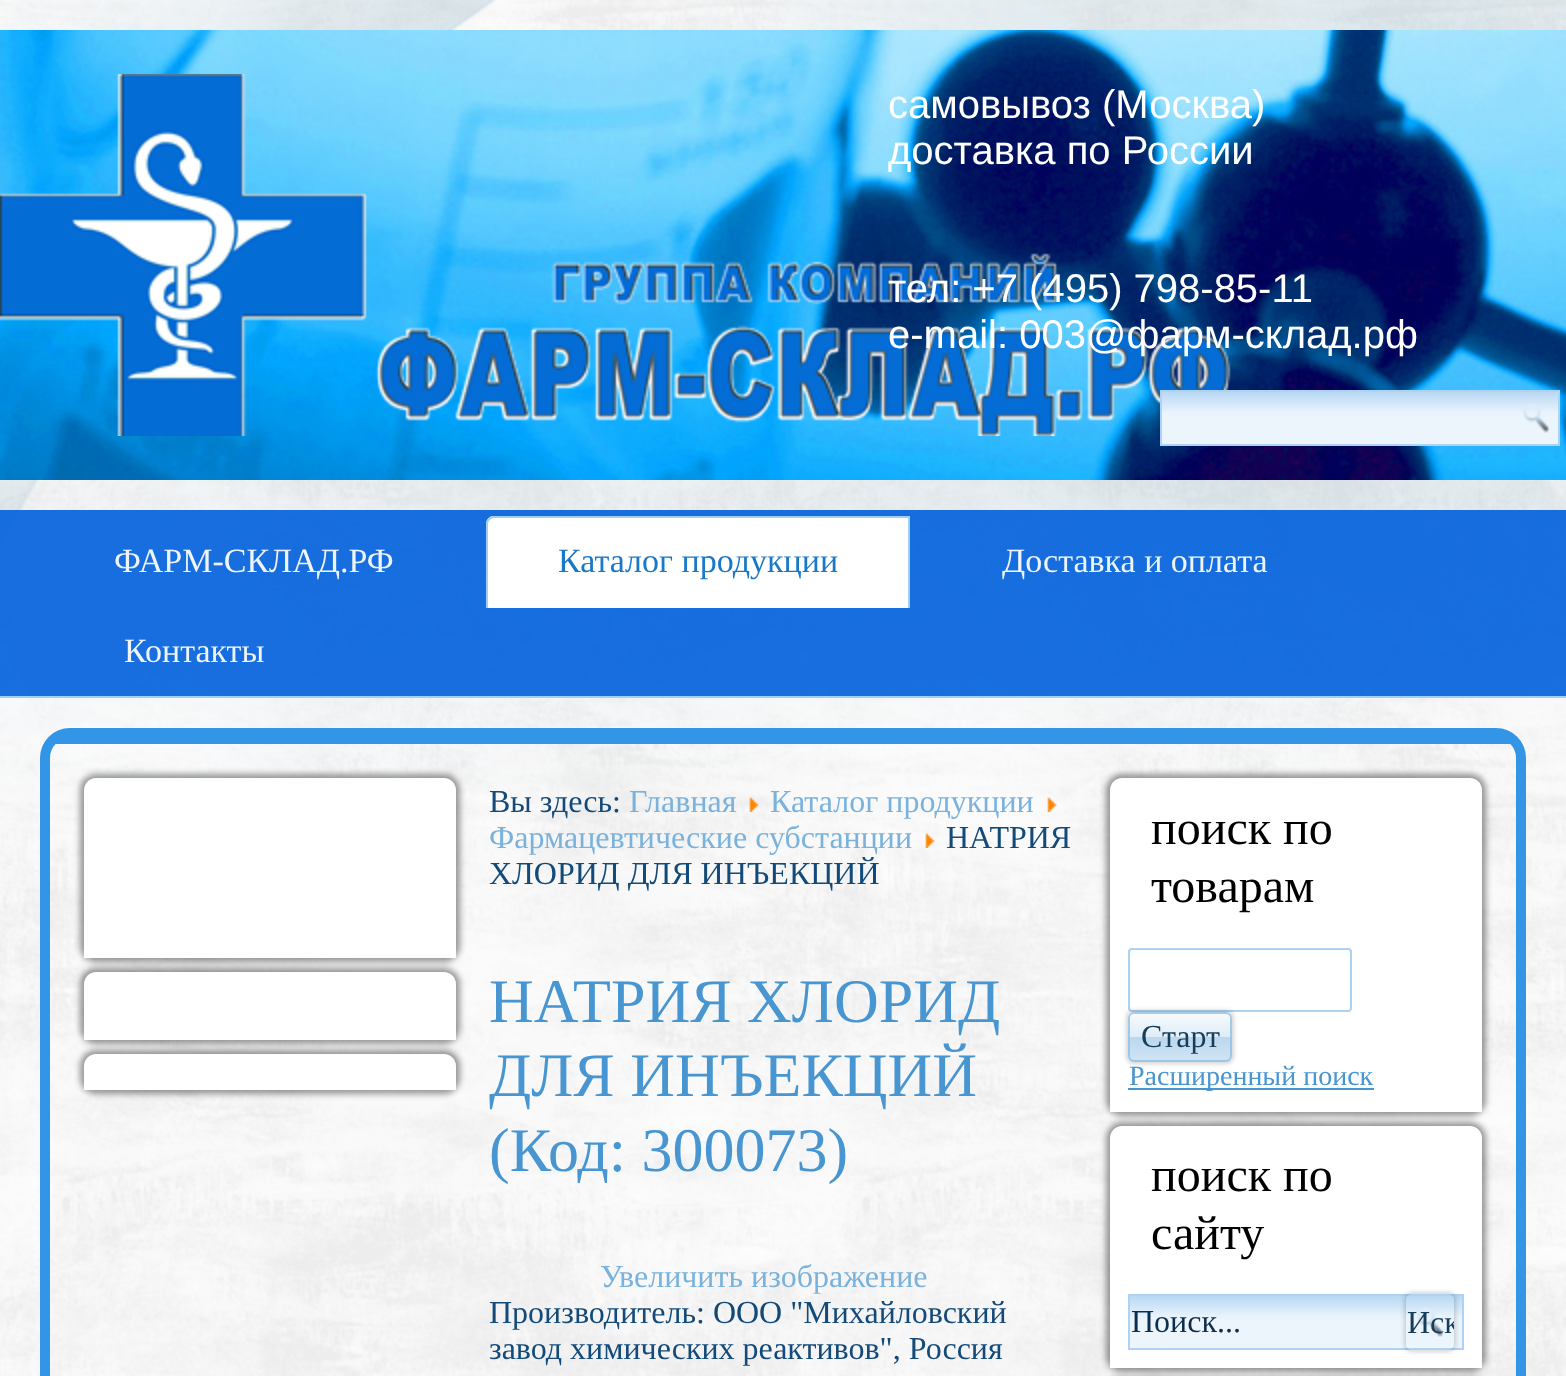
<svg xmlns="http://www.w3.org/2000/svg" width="1566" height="1376">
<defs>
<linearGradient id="g1" gradientUnits="userSpaceOnUse" x1="1360" y1="392" x2="1360" y2="444"><stop offset="0" stop-color="#b8d8f4"/><stop offset="0.4" stop-color="#e9f3fc"/><stop offset="0.5" stop-color="#edf5fc"/><stop offset="1" stop-color="#edf5fc"/></linearGradient>
<clipPath id="clip1"><path d="M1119 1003h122v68h-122zm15 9h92c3.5 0 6 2.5 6 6v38c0 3.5-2.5 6-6 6h-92c-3.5 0-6-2.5-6-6v-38c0-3.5 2.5-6 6-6z" clip-rule="evenodd"/></clipPath>
<linearGradient id="g2" gradientUnits="userSpaceOnUse" x1="1180" y1="1012" x2="1180" y2="1062"><stop offset="0" stop-color="#f7fafd" stop-opacity="0.8"/><stop offset="0.5" stop-color="#d6e8f5" stop-opacity="0.8"/><stop offset="0.5" stop-color="#a9ceea" stop-opacity="0.8"/><stop offset="1" stop-color="#c6def1" stop-opacity="0.8"/></linearGradient>
<linearGradient id="g3" gradientUnits="userSpaceOnUse" x1="1296" y1="1296" x2="1296" y2="1348"><stop offset="0" stop-color="#b8d8f4"/><stop offset="0.4" stop-color="#e9f3fc"/><stop offset="0.5" stop-color="#edf5fc"/><stop offset="1" stop-color="#edf5fc"/></linearGradient>
<clipPath id="clip2"><path d="M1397 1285h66v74h-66zm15 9h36c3.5 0 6 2.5 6 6v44c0 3.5-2.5 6-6 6h-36c-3.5 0-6-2.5-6-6v-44c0-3.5 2.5-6 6-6z" clip-rule="evenodd"/></clipPath>
<clipPath id="clip3"><rect x="1406" y="1294" width="48" height="56" rx="6"/></clipPath>
</defs>
<rect width="100%" height="100%" fill="#fff"/>
<image x="0" y="0" width="1566" height="1376" href="media/1.png"/>
<image x="0" y="30" width="1566" height="450" href="media/2.png"/>
<image x="0" y="74" width="1231" height="362" href="media/3.png"/>
<text x="888" y="118" style="font-family:Liberation Sans;font-size:40px;fill:#fff">самовывоз (Москва)</text>
<text x="888" y="164" style="font-family:Liberation Sans;font-size:40px;fill:#fff">доставка по России</text>
<text x="888" y="302" style="font-family:Liberation Sans;font-size:40px;fill:#fff">тел: +7 (495) 798-85-11</text>
<text x="888" y="348" style="font-family:Liberation Sans;font-size:40px;fill:#fff">e-mail: 003@фарм-склад.рф</text>
<rect x="1162" y="392" width="396" height="52" fill="url(#g1)"/>
<rect x="1161" y="391" width="398" height="54" fill="none" stroke="#add2f2" stroke-width="2"/>
<image x="1523" y="404" width="27" height="29" href="media/4.png"/>
<rect y="510" width="1566" height="186" fill="#005fdbe6"/>
<rect y="696" width="1566" height="2" fill="#a1cef3"/>
<text x="114" y="572" style="font-family:Liberation Serif;font-size:34px;fill:#edf5fb">ФАРМ-СКЛАД.РФ</text>
<path d="M494 516h416v92h-424v-84c0-4.5 3.5-8 8-8z" fill="#fff"/>
<path d="M494 516h416v92h-424v-84c0-4 4-8 8-8zm0 2h414v90h-420v-84c0-3 3-6 6-6z" fill="#a1cef3" fill-rule="evenodd"/>
<text x="558" y="572" style="font-family:Liberation Serif;font-size:34px;fill:#1979c8">Каталог продукции</text>
<text x="1002" y="572" style="font-family:Liberation Serif;font-size:34px;fill:#edf5fb">Доставка и оплата</text>
<text x="124" y="662" style="font-family:Liberation Serif;font-size:34px;fill:#edf5fb">Контакты</text>
<rect x="45" y="733" width="1476" height="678" rx="25" fill="none" stroke="#3395e6" stroke-width="10"/>
<rect x="56" y="738" width="1456" height="6" fill="#3395e6"/>
<rect x="80" y="774" width="380" height="188" rx="16" fill="#00000066" filter="blur(3px)"/>
<path d="M96 778h348c6.5 0 12 5.5 12 12v168h-372v-168c0-6.5 5.5-12 12-12z" fill="#fff"/>
<rect x="80" y="968" width="380" height="76" rx="16" fill="#00000066" filter="blur(3px)"/>
<path d="M96 972h348c6.5 0 12 5.5 12 12v56h-372v-56c0-6.5 5.5-12 12-12z" fill="#fff"/>
<rect x="80" y="1050" width="380" height="44" rx="16" fill="#00000066" filter="blur(3px)"/>
<path d="M96 1054h348c6.5 0 12 5.5 12 12v24h-372v-24c0-6.5 5.5-12 12-12z" fill="#fff"/>
<text x="489" y="812" style="font-family:Liberation Serif;font-size:32px;fill:#134a79">Вы здесь:</text>
<text x="629" y="812" style="font-family:Liberation Serif;font-size:32px;fill:#79b2dd">Главная</text>
<image x="749" y="797" width="10" height="15" href="media/5.png"/>
<text x="770" y="812" style="font-family:Liberation Serif;font-size:32px;fill:#79b2dd">Каталог продукции</text>
<image x="1047" y="797" width="10" height="15" href="media/6.png"/>
<text x="489" y="848" style="font-family:Liberation Serif;font-size:32px;fill:#79b2dd">Фармацевтические субстанции</text>
<image x="925" y="833" width="10" height="15" href="media/7.png"/>
<text x="946" y="848" style="font-family:Liberation Serif;font-size:32px;fill:#134a79">НАТРИЯ</text>
<text x="489" y="884" style="font-family:Liberation Serif;font-size:32px;fill:#134a79">ХЛОРИД ДЛЯ ИНЪЕКЦИЙ</text>
<text x="489" y="1022" style="font-family:Liberation Serif;font-size:62px;fill:#4795d1">НАТРИЯ ХЛОРИД</text>
<text x="489" y="1096" style="font-family:Liberation Serif;font-size:62px;fill:#4795d1">ДЛЯ ИНЪЕКЦИЙ</text>
<text x="489" y="1171" style="font-family:Liberation Serif;font-size:62px;fill:#4795d1">(Код: 300073)</text>
<text x="600" y="1287" style="font-family:Liberation Serif;font-size:32px;fill:#79b2dd">Увеличить изображение</text>
<text x="489" y="1323" style="font-family:Liberation Serif;font-size:32px;fill:#134a79">Производитель: ООО "Михайловский</text>
<text x="489" y="1359" style="font-family:Liberation Serif;font-size:32px;fill:#134a79">завод химических реактивов", Россия</text>
<rect x="1106" y="774" width="380" height="342" rx="16" fill="#00000066" filter="blur(3px)"/>
<path d="M1122 778h348c6.5 0 12 5.5 12 12v322h-372v-322c0-6.5 5.5-12 12-12z" fill="#fff"/>
<text x="1151" y="844" style="font-family:Liberation Serif;font-size:48px;fill:#000">поиск по</text>
<text x="1151" y="902" style="font-family:Liberation Serif;font-size:48px;fill:#000">товарам</text>
<rect x="1129" y="949" width="222" height="62" rx="3" fill="none" stroke="#add2f2" stroke-width="2"/>
<g clip-path="url(#clip1)">
<rect x="1126" y="1010" width="108" height="54" rx="8" fill="#00000029" filter="blur(2px)"/>
</g>
<rect x="1128" y="1012" width="104" height="50" rx="6" fill="url(#g2)"/>
<rect x="1129" y="1013" width="102" height="48" rx="5" fill="none" stroke="#8fbfe3cc" stroke-width="2"/>
<text x="1141" y="1047" style="font-family:Liberation Serif;font-size:32px;fill:#163d5a">Старт</text>
<rect x="1128" y="1088" width="246" height="2" fill="#4795d1"/>
<text x="1129" y="1085" style="font-family:Liberation Serif;font-size:28px;fill:#4795d1">Расширенный поиск</text>
<rect x="1106" y="1122" width="380" height="250" rx="16" fill="#00000066" filter="blur(3px)"/>
<path d="M1122 1126h348c6.5 0 12 5.5 12 12v230h-372v-230c0-6.5 5.5-12 12-12z" fill="#fff"/>
<text x="1151" y="1191" style="font-family:Liberation Serif;font-size:48px;fill:#000">поиск по</text>
<text x="1151" y="1249" style="font-family:Liberation Serif;font-size:48px;fill:#000">сайту</text>
<rect x="1130" y="1296" width="332" height="52" fill="url(#g3)"/>
<rect x="1129" y="1295" width="334" height="54" fill="none" stroke="#add2f2" stroke-width="2"/>
<text x="1131" y="1332" style="font-family:Liberation Serif;font-size:32px;fill:#0c2f4e">Поиск...</text>
<g clip-path="url(#clip2)">
<rect x="1404" y="1292" width="52" height="60" rx="8" fill="#00000029" filter="blur(2px)"/>
</g>
<image x="1417" y="1308" width="27" height="29" href="media/4.png"/>
<g clip-path="url(#clip3)">
<text x="1407" y="1333" style="font-family:Liberation Serif;font-size:32px;fill:#163d5a">Иск</text>
</g>
<rect x="1106" y="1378" width="380" height="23" rx="16" fill="#00000066" filter="blur(3px)"/>
</svg>
